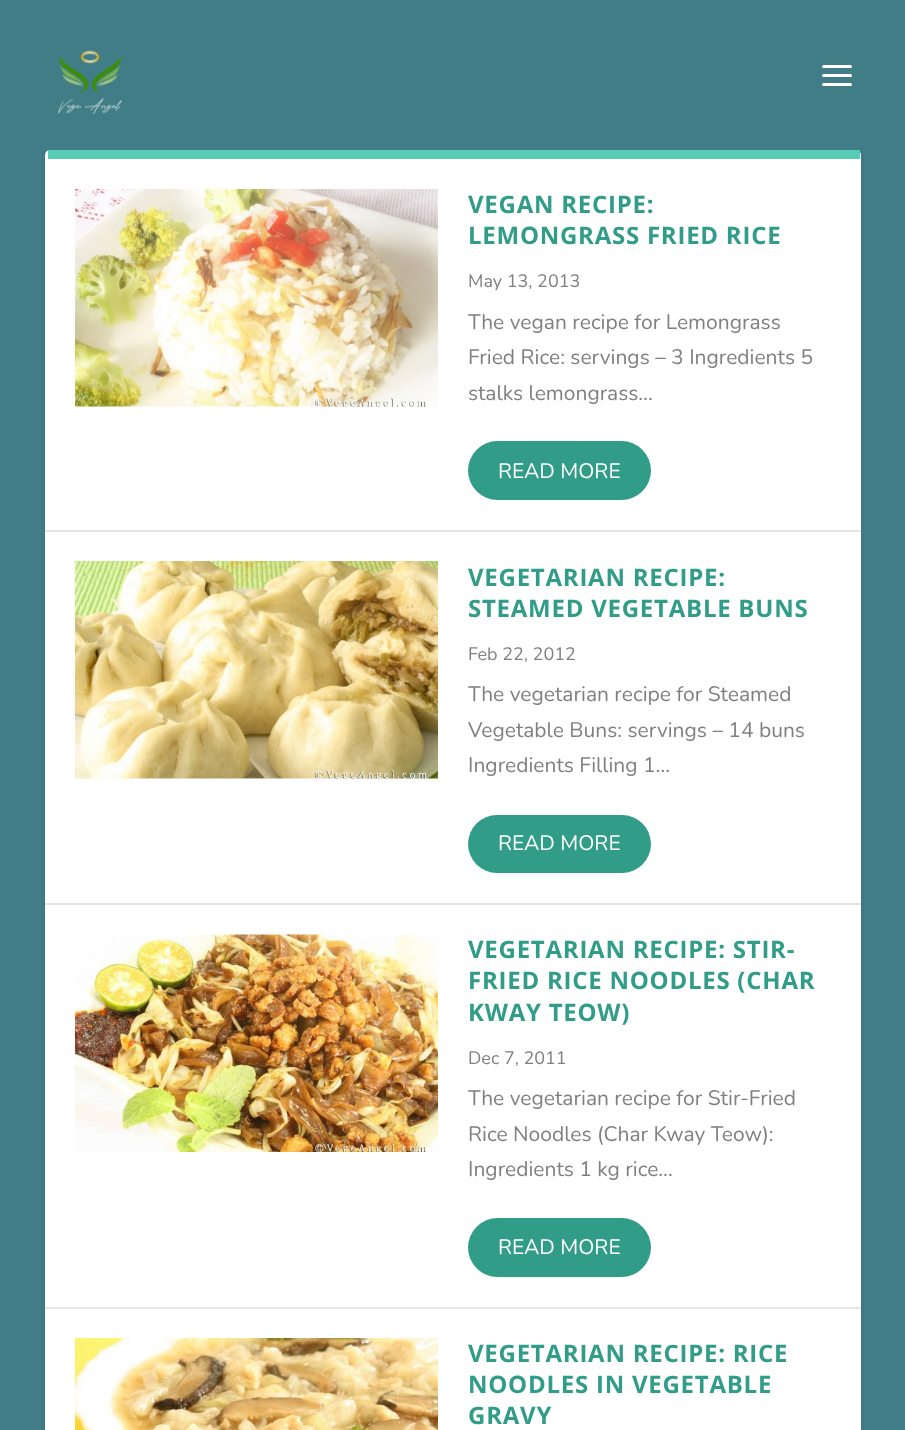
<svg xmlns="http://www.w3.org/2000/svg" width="905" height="1430">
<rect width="100%" height="100%" fill="#417d87"/>
<image x="58" y="50" width="64" height="65" href="media/1.png"/>
<rect x="822" y="65" width="30" height="3" rx="1.5" fill="#fff"/>
<rect x="822" y="74" width="30" height="3" rx="1.5" fill="#fff"/>
<rect x="822" y="83" width="30" height="3" rx="1.5" fill="#fff"/>
<rect x="45" y="152" width="816" height="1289" rx="5" fill="#0000001a" filter="blur(2px)"/>
<rect x="45" y="150" width="816" height="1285" rx="5" fill="#fff"/>
<rect x="48" y="150" width="812" height="9" fill="#58cbb6"/>
<rect x="45" y="530" width="816" height="2" fill="#e6e6e6"/>
<image x="75" y="189" width="363" height="218" href="media/2.png"/>
<text x="468" y="213" style="font-family:Open Sans;font-size:24px;font-weight:bold;letter-spacing:0.75px;fill:#319d89">VEGAN RECIPE:</text>
<text x="468" y="244" style="font-family:Open Sans;font-size:24px;font-weight:bold;letter-spacing:0.75px;fill:#319d89">LEMONGRASS FRIED RICE</text>
<text x="468" y="287" style="font-family:Nunito;font-size:18px;fill:#808080">May 13, 2013</text>
<text x="468" y="329" style="font-family:Nunito;font-size:21px;fill:#808080">The vegan recipe for Lemongrass</text>
<text x="468" y="364" style="font-family:Nunito;font-size:21px;fill:#808080">Fried Rice: servings – 3 Ingredients 5</text>
<text x="468" y="400" style="font-family:Nunito;font-size:21px;fill:#808080">stalks lemongrass...</text>
<rect x="468" y="441" width="183" height="59" rx="29.5" fill="#319d89"/>
<text x="498" y="478" style="font-family:Nunito;font-size:21px;fill:#fff">READ MORE</text>
<rect x="45" y="903" width="816" height="2" fill="#e6e6e6"/>
<image x="75" y="561" width="363" height="218" href="media/3.png"/>
<text x="468" y="586" style="font-family:Open Sans;font-size:24px;font-weight:bold;letter-spacing:0.75px;fill:#319d89">VEGETARIAN RECIPE:</text>
<text x="468" y="617" style="font-family:Open Sans;font-size:24px;font-weight:bold;letter-spacing:0.75px;fill:#319d89">STEAMED VEGETABLE BUNS</text>
<text x="468" y="660" style="font-family:Nunito;font-size:18px;fill:#808080">Feb 22, 2012</text>
<text x="468" y="701" style="font-family:Nunito;font-size:21px;fill:#808080">The vegetarian recipe for Steamed</text>
<text x="468" y="737" style="font-family:Nunito;font-size:21px;fill:#808080">Vegetable Buns: servings – 14 buns</text>
<text x="468" y="772" style="font-family:Nunito;font-size:21px;fill:#808080">Ingredients Filling 1...</text>
<rect x="468" y="815" width="183" height="58" rx="29" fill="#319d89"/>
<text x="498" y="850" style="font-family:Nunito;font-size:21px;fill:#fff">READ MORE</text>
<rect x="45" y="1307" width="816" height="2" fill="#e6e6e6"/>
<image x="75" y="934" width="363" height="218" href="media/4.png"/>
<text x="468" y="958" style="font-family:Open Sans;font-size:24px;font-weight:bold;letter-spacing:0.75px;fill:#319d89">VEGETARIAN RECIPE: STIR-</text>
<text x="468" y="989" style="font-family:Open Sans;font-size:24px;font-weight:bold;letter-spacing:0.75px;fill:#319d89">FRIED RICE NOODLES (CHAR</text>
<text x="468" y="1021" style="font-family:Open Sans;font-size:24px;font-weight:bold;letter-spacing:0.75px;fill:#319d89">KWAY TEOW)</text>
<text x="468" y="1064" style="font-family:Nunito;font-size:18px;fill:#808080">Dec 7, 2011</text>
<text x="468" y="1105" style="font-family:Nunito;font-size:21px;fill:#808080">The vegetarian recipe for Stir-Fried</text>
<text x="468" y="1141" style="font-family:Nunito;font-size:21px;fill:#808080">Rice Noodles (Char Kway Teow):</text>
<text x="468" y="1176" style="font-family:Nunito;font-size:21px;fill:#808080">Ingredients 1 kg rice...</text>
<rect x="468" y="1218" width="183" height="59" rx="29.5" fill="#319d89"/>
<text x="498" y="1254" style="font-family:Nunito;font-size:21px;fill:#fff">READ MORE</text>
<image x="75" y="1338" width="363" height="92" href="media/5.png"/>
<text x="468" y="1362" style="font-family:Open Sans;font-size:24px;font-weight:bold;letter-spacing:0.75px;fill:#319d89">VEGETARIAN RECIPE: RICE</text>
<text x="468" y="1393" style="font-family:Open Sans;font-size:24px;font-weight:bold;letter-spacing:0.75px;fill:#319d89">NOODLES IN VEGETABLE</text>
<text x="468" y="1424" style="font-family:Open Sans;font-size:24px;font-weight:bold;letter-spacing:0.75px;fill:#319d89">GRAVY</text>
</svg>
